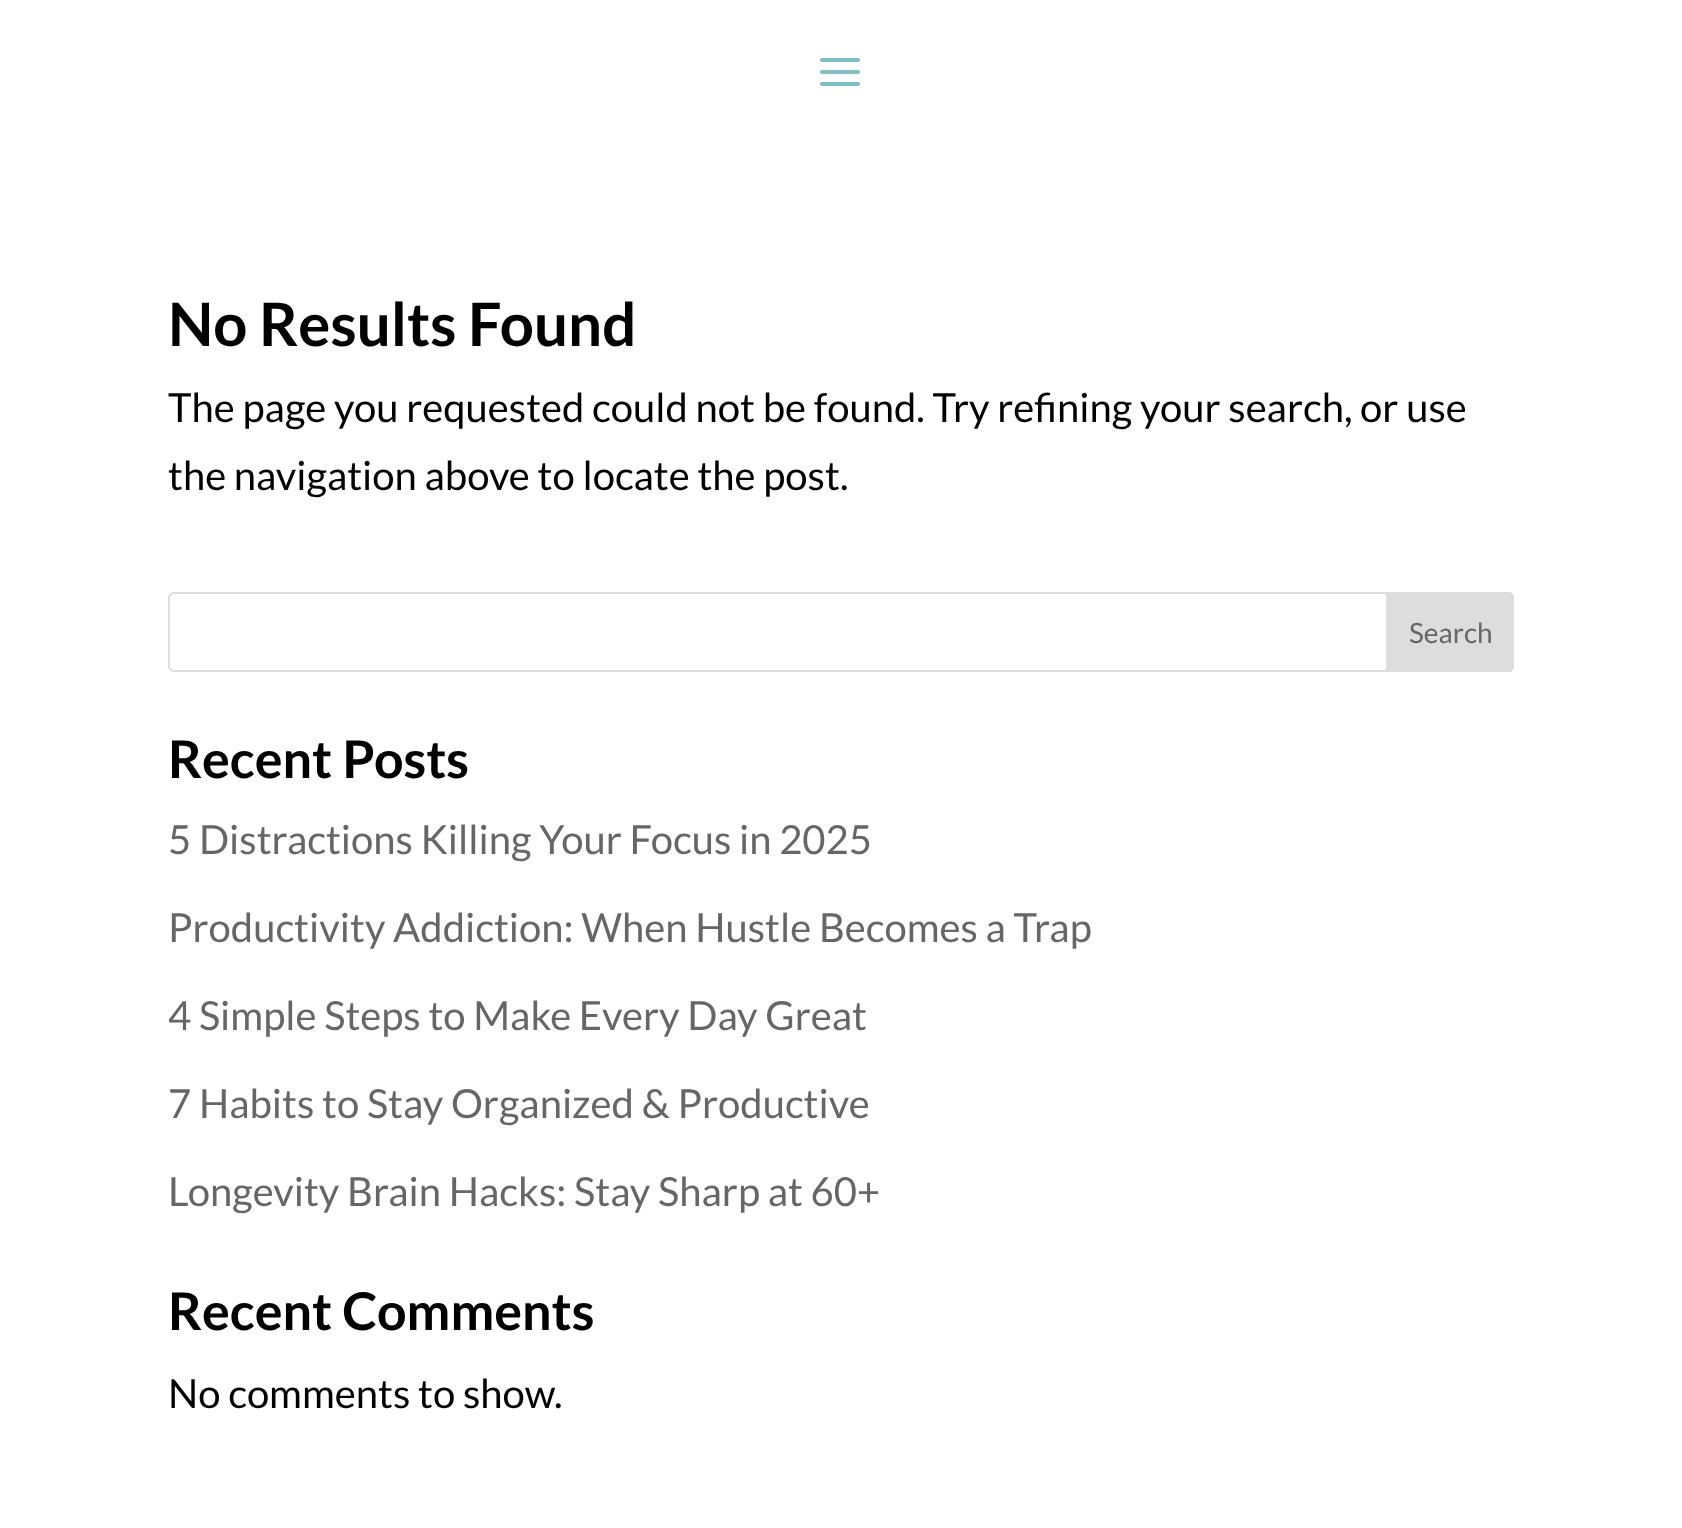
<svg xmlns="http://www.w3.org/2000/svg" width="1682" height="1528">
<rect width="100%" height="100%" fill="#fff"/>
<image x="820" y="57" width="40" height="29" href="media/1.png"/>
<text x="168" y="346" style="font-family:Lato;font-size:60px;font-weight:bold;fill:#000">No Results Found</text>
<text x="168" y="422" style="font-family:Lato;font-size:40px;fill:#000">The page you requested could not be found. Try refining your search, or use</text>
<text x="168" y="490" style="font-family:Lato;font-size:40px;fill:#000">the navigation above to locate the post.</text>
<rect x="169" y="593" width="1344" height="78" rx="5" fill="none" stroke="#ddd" stroke-width="2"/>
<path d="M1387 593h121c3 0 5 2 5 5v68c0 3-2 5-5 5h-121z" fill="#ddd" stroke="#ddd" stroke-width="2"/>
<text x="1409" y="643" style="font-family:Lato;font-size:28px;fill:#666">Search</text>
<text x="168" y="778" style="font-family:Lato;font-size:52px;font-weight:bold;fill:#000">Recent Posts</text>
<text x="168" y="854" style="font-family:Lato;font-size:40px;fill:#666">5 Distractions Killing Your Focus in 2025</text>
<text x="168" y="942" style="font-family:Lato;font-size:40px;fill:#666">Productivity Addiction: When Hustle Becomes a Trap</text>
<text x="168" y="1030" style="font-family:Lato;font-size:40px;fill:#666">4 Simple Steps to Make Every Day Great</text>
<text x="168" y="1118" style="font-family:Lato;font-size:40px;fill:#666">7 Habits to Stay Organized &amp; Productive</text>
<text x="168" y="1206" style="font-family:Lato;font-size:40px;fill:#666">Longevity Brain Hacks: Stay Sharp at 60+</text>
<text x="168" y="1330" style="font-family:Lato;font-size:52px;font-weight:bold;fill:#000">Recent Comments</text>
<text x="168" y="1408" style="font-family:Lato;font-size:40px;fill:#000">No comments to show.</text>
</svg>
